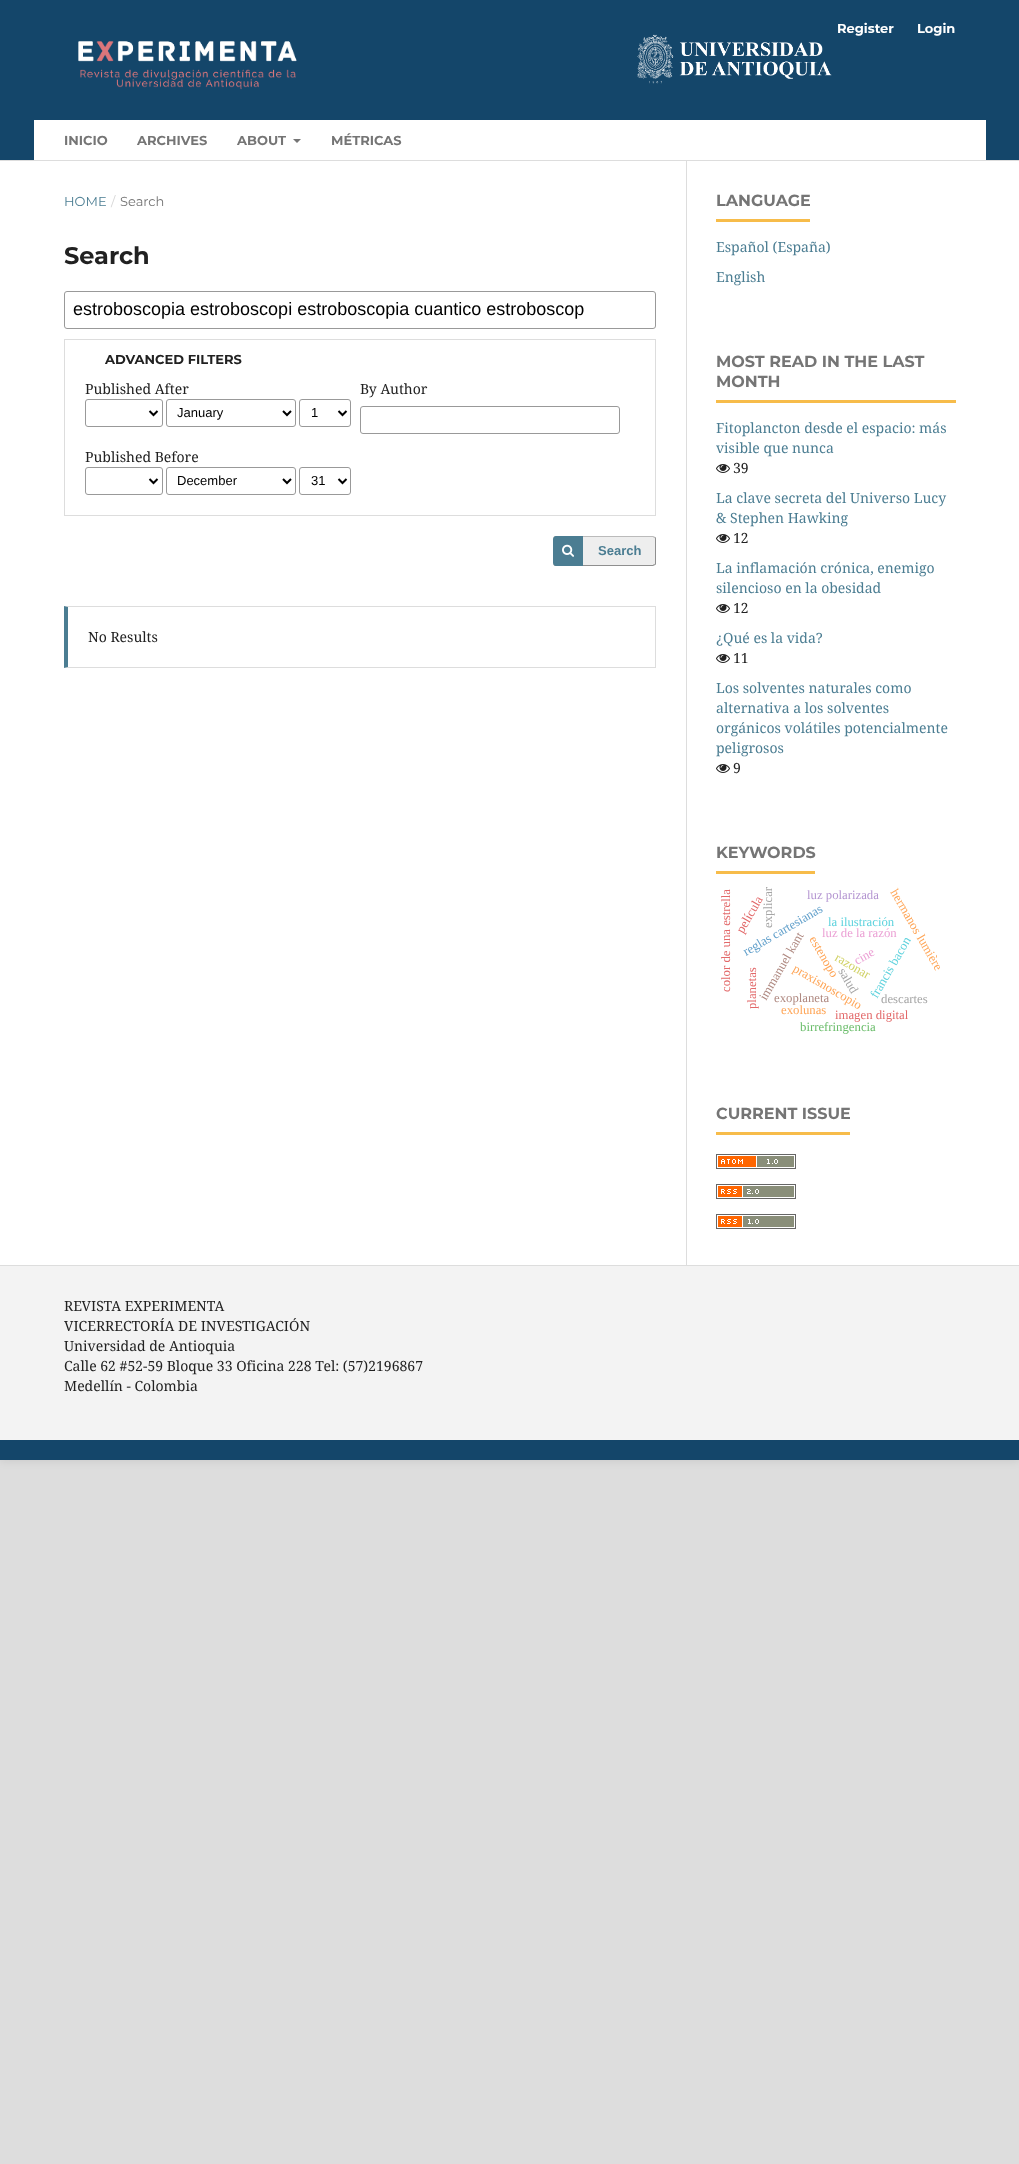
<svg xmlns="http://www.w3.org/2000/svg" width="1019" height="2164">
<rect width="100%" height="100%" fill="#ddd"/>
<rect width="1019" height="1460" fill="#0000001a" filter="blur(5px)"/>
<rect y="161" width="1019" height="1104" fill="#fff"/>
<rect width="1019" height="160" fill="#14466a"/>
<rect y="160" width="1019" height="1" fill="#ddd"/>
<text x="837" y="33" style="font-family:Montserrat;font-size:13px;font-weight:bold;fill:#fff">Register</text>
<text x="917" y="33" style="font-family:Montserrat;font-size:13px;font-weight:bold;fill:#fff">Login</text>
<rect x="34" y="120" width="952" height="40" fill="#fff"/>
<text x="64" y="145" style="font-family:Montserrat;font-size:13px;font-weight:bold;fill:#757575">INICIO</text>
<text x="137" y="145" style="font-family:Montserrat;font-size:13px;font-weight:bold;fill:#757575">ARCHIVES</text>
<text x="237" y="145" style="font-family:Montserrat;font-size:13px;font-weight:bold;fill:#757575">ABOUT</text>
<path d="M293 139h8l-4 4z" fill="#757575"/>
<text x="331" y="145" style="font-family:Montserrat;font-size:13px;font-weight:bold;fill:#757575">MÉTRICAS</text>
<image x="78" y="41" width="219" height="49" href="media/1.png"/>
<image x="637" y="34" width="195" height="50" href="media/2.png"/>
<text x="64" y="206" style="font-family:Montserrat;font-size:13px;fill:#4b7d92">HOME</text>
<text x="111" y="206" style="font-family:Montserrat;font-size:13px;fill:#d6d6d6">/</text>
<text x="120" y="206" style="font-family:Montserrat;font-size:13px;fill:#757575">Search</text>
<text x="64" y="264" style="font-family:Montserrat;font-size:24px;font-weight:bold;fill:#212121">Search</text>
<rect x="64.5" y="291.5" width="591" height="37" rx="2.5" fill="none" stroke="#999"/>
<text x="73" y="315" style="font-family:Liberation Sans;font-size:18px;fill:#000">estroboscopia estroboscopi estroboscopia cuantico estroboscop</text>
<rect x="64.5" y="339.5" width="591" height="176" fill="none" stroke="#ddd"/>
<text x="105" y="364" style="font-family:Montserrat;font-size:13px;font-weight:bold;fill:#212121">ADVANCED FILTERS</text>
<text x="85" y="394" style="font-family:Noto Serif;font-size:14px;fill:#212121">Published After</text>
<rect x="85.5" y="399.5" width="77" height="27" rx="2.5" fill="none" stroke="#999"/>
<path d="M149.5 411l4 4l4-4" fill="none" stroke="#000" stroke-width="2"/>
<rect x="166.5" y="399.5" width="129" height="27" rx="2.5" fill="none" stroke="#999"/>
<path d="M283 411l4 4l4-4" fill="none" stroke="#000" stroke-width="2"/>
<text x="177" y="417" style="font-family:Liberation Sans;font-size:13px;fill:#000">January</text>
<rect x="299.5" y="399.5" width="51" height="27" rx="2.5" fill="none" stroke="#999"/>
<path d="M338.5 411l4 4l4-4" fill="none" stroke="#000" stroke-width="2"/>
<text x="311" y="417" style="font-family:Liberation Sans;font-size:13px;fill:#000">1</text>
<text x="85" y="462" style="font-family:Noto Serif;font-size:14px;fill:#212121">Published Before</text>
<rect x="85.5" y="467.5" width="77" height="27" rx="2.5" fill="none" stroke="#999"/>
<path d="M149.5 479l4 4l4-4" fill="none" stroke="#000" stroke-width="2"/>
<rect x="166.5" y="467.5" width="129" height="27" rx="2.5" fill="none" stroke="#999"/>
<path d="M283 479l4 4l4-4" fill="none" stroke="#000" stroke-width="2"/>
<text x="177" y="485" style="font-family:Liberation Sans;font-size:13px;fill:#000">December</text>
<rect x="299.5" y="467.5" width="51" height="27" rx="2.5" fill="none" stroke="#999"/>
<path d="M338.5 479l4 4l4-4" fill="none" stroke="#000" stroke-width="2"/>
<text x="311" y="485" style="font-family:Liberation Sans;font-size:13px;fill:#000">31</text>
<text x="360" y="394" style="font-family:Noto Serif;font-size:14px;fill:#212121">By Author</text>
<rect x="360.5" y="406.5" width="259" height="27" rx="2.5" fill="none" stroke="#999"/>
<rect x="553" y="536" width="103" height="30" rx="3" fill="#eee"/>
<path d="M556 536c-2 0-3 1-3 3c0-1 1-2 3-2h97l1 1l1-1l-2-1z" fill="#bbb"/>
<path d="M654.5 564.5c.5-.5 .5-1 .5-1.5v-24c0-.5 0-1-.5-1.5l.5-.5c1 0 1 1 1 2v24c0 1 0 2-1 2z" fill="#00000066"/>
<path d="M556 566h97l2-1l-1-1l-1 1h-97c-2 0-3-1-3-2c0 2 1 3 3 3z" fill="#00000066"/>
<path d="M556 536h27v30h-27c-1.5 0-3-1.5-3-3v-24c0-1.5 1.5-3 3-3z" fill="#4b7d92"/>
<image x="562" y="544" width="12" height="13" href="media/3.png"/>
<text x="598" y="555" style="font-family:Liberation Sans;font-size:13px;font-weight:bold;fill:#4b7d92">Search</text>
<path d="M64 606h592l-1 1h-587z" fill="#ddd"/>
<rect x="655" y="606" width="1" height="62" fill="#ddd"/>
<path d="M656 668h-592l4-1h587z" fill="#ddd"/>
<path d="M64 668v-62l4 1v60z" fill="#4b7d92"/>
<text x="88" y="642" style="font-family:Noto Serif;font-size:14px;fill:#212121">No Results</text>
<rect x="686" y="161" width="1" height="1104" fill="#ddd"/>
<rect x="716" y="219" width="94" height="3" fill="#f7bc4a"/>
<text x="716" y="206" style="font-family:Montserrat;font-size:16px;font-weight:bold;fill:#757575">LANGUAGE</text>
<text x="716" y="252" style="font-family:Noto Serif;font-size:14px;fill:#4b7d92">Español (España)</text>
<text x="716" y="282" style="font-family:Noto Serif;font-size:14px;fill:#4b7d92">English</text>
<rect x="716" y="400" width="240" height="3" fill="#f7bc4a"/>
<text x="716" y="367" style="font-family:Montserrat;font-size:16px;font-weight:bold;fill:#757575">MOST READ IN THE LAST</text>
<text x="716" y="387" style="font-family:Montserrat;font-size:16px;font-weight:bold;fill:#757575">MONTH</text>
<text x="716" y="433" style="font-family:Noto Serif;font-size:14px;fill:#4b7d92">Fitoplancton desde el espacio: más</text>
<text x="716" y="453" style="font-family:Noto Serif;font-size:14px;fill:#4b7d92">visible que nunca</text>
<image x="716" y="464" width="14" height="9" href="media/4.png"/>
<text x="733" y="473" style="font-family:Noto Serif;font-size:14px;fill:#212121">39</text>
<text x="716" y="503" style="font-family:Noto Serif;font-size:14px;fill:#4b7d92">La clave secreta del Universo Lucy</text>
<text x="716" y="523" style="font-family:Noto Serif;font-size:14px;fill:#4b7d92">&amp; Stephen Hawking</text>
<image x="716" y="534" width="14" height="9" href="media/4.png"/>
<text x="733" y="543" style="font-family:Noto Serif;font-size:14px;fill:#212121">12</text>
<text x="716" y="573" style="font-family:Noto Serif;font-size:14px;fill:#4b7d92">La inflamación crónica, enemigo</text>
<text x="716" y="593" style="font-family:Noto Serif;font-size:14px;fill:#4b7d92">silencioso en la obesidad</text>
<image x="716" y="604" width="14" height="9" href="media/4.png"/>
<text x="733" y="613" style="font-family:Noto Serif;font-size:14px;fill:#212121">12</text>
<text x="716" y="643" style="font-family:Noto Serif;font-size:14px;fill:#4b7d92">¿Qué es la vida?</text>
<image x="716" y="654" width="14" height="9" href="media/4.png"/>
<text x="733" y="663" style="font-family:Noto Serif;font-size:14px;fill:#212121">11</text>
<text x="716" y="693" style="font-family:Noto Serif;font-size:14px;fill:#4b7d92">Los solventes naturales como</text>
<text x="716" y="713" style="font-family:Noto Serif;font-size:14px;fill:#4b7d92">alternativa a los solventes</text>
<text x="716" y="733" style="font-family:Noto Serif;font-size:14px;fill:#4b7d92">orgánicos volátiles potencialmente</text>
<text x="716" y="753" style="font-family:Noto Serif;font-size:14px;fill:#4b7d92">peligrosos</text>
<image x="716" y="764" width="14" height="9" href="media/4.png"/>
<text x="733" y="773" style="font-family:Noto Serif;font-size:14px;fill:#212121">9</text>
<rect x="716" y="871" width="99" height="3" fill="#f7bc4a"/>
<text x="716" y="858" style="font-family:Montserrat;font-size:16px;font-weight:bold;fill:#757575">KEYWORDS</text>
<text x="730" y="992" transform="rotate(-90 730 992)" style="font-family:Liberation Serif;font-size:12.75px;fill:#e26869">color de una estrella</text>
<text x="822" y="937" style="font-family:Liberation Serif;font-size:12.75px;fill:#eba0d4">luz de la razón</text>
<text x="809" y="939" transform="rotate(60 809 939)" style="font-family:Liberation Serif;font-size:12.75px;fill:#ffa556">estenopo</text>
<text x="746" y="956" transform="rotate(-30 746 956)" style="font-family:Liberation Serif;font-size:12.75px;fill:#62a0cb">reglas cartesianas</text>
<text x="743" y="934" transform="rotate(-60 743 934)" style="font-family:Liberation Serif;font-size:12.75px;fill:#e26869">película</text>
<text x="772" y="928" transform="rotate(-90 772 928)" style="font-family:Liberation Serif;font-size:12.75px;fill:#a5a5a5">explicar</text>
<text x="807" y="899" style="font-family:Liberation Serif;font-size:12.75px;fill:#b495d1">luz polarizada</text>
<text x="828" y="926" style="font-family:Liberation Serif;font-size:12.75px;fill:#5dd2dd">la ilustración</text>
<text x="877" y="999" transform="rotate(-60 877 999)" style="font-family:Liberation Serif;font-size:12.75px;fill:#5dd2dd">francis bacon</text>
<text x="890" y="892" transform="rotate(60 890 892)" style="font-family:Liberation Serif;font-size:12.75px;fill:#ffa556">hermanos lumière</text>
<text x="766" y="1001" transform="rotate(-60 766 1001)" style="font-family:Liberation Serif;font-size:12.75px;fill:#af8981">immanuel kant</text>
<text x="838" y="971" transform="rotate(60 838 971)" style="font-family:Liberation Serif;font-size:12.75px;fill:#a5a5a5">salud</text>
<text x="834" y="960" transform="rotate(30 834 960)" style="font-family:Liberation Serif;font-size:12.75px;fill:#d0d164">razonar</text>
<text x="857" y="965" transform="rotate(-30 857 965)" style="font-family:Liberation Serif;font-size:12.75px;fill:#eba0d4">cine</text>
<text x="756" y="1009" transform="rotate(-90 756 1009)" style="font-family:Liberation Serif;font-size:12.75px;fill:#e26869">planetas</text>
<text x="792" y="971" transform="rotate(30 792 971)" style="font-family:Liberation Serif;font-size:12.75px;fill:#ffa556">praxisnoscopio</text>
<text x="774" y="1002" style="font-family:Liberation Serif;font-size:12.75px;fill:#af8981">exoplaneta</text>
<text x="881" y="1003" style="font-family:Liberation Serif;font-size:12.75px;fill:#a5a5a5">descartes</text>
<text x="781" y="1014" style="font-family:Liberation Serif;font-size:12.75px;fill:#ffa556">exolunas</text>
<text x="835" y="1019" style="font-family:Liberation Serif;font-size:12.75px;fill:#e26869">imagen digital</text>
<text x="800" y="1031" style="font-family:Liberation Serif;font-size:12.75px;fill:#6bbd6b">birrefringencia</text>
<rect x="716" y="1132" width="134" height="3" fill="#f7bc4a"/>
<text x="716" y="1119" style="font-family:Montserrat;font-size:16px;font-weight:bold;fill:#757575">CURRENT ISSUE</text>
<image x="716" y="1154" width="80" height="15" href="media/5.png"/>
<image x="716" y="1184" width="80" height="15" href="media/6.png"/>
<image x="716" y="1214" width="80" height="15" href="media/7.png"/>
<rect y="1266" width="1019" height="174" fill="#f3f3f3"/>
<rect y="1265" width="1019" height="1" fill="#ddd"/>
<rect y="1440" width="1019" height="20" fill="#14466a"/>
<text x="64" y="1311" style="font-family:Noto Serif;font-size:14px;fill:#212121">REVISTA EXPERIMENTA</text>
<text x="64" y="1331" style="font-family:Noto Serif;font-size:14px;fill:#212121">VICERRECTORÍA DE INVESTIGACIÓN</text>
<text x="64" y="1351" style="font-family:Noto Serif;font-size:14px;fill:#212121">Universidad de Antioquia</text>
<text x="64" y="1371" style="font-family:Noto Serif;font-size:14px;fill:#212121">Calle 62 #52-59 Bloque 33 Oficina 228 Tel: (57)2196867</text>
<text x="64" y="1391" style="font-family:Noto Serif;font-size:14px;fill:#212121">Medellín - Colombia</text>
</svg>
